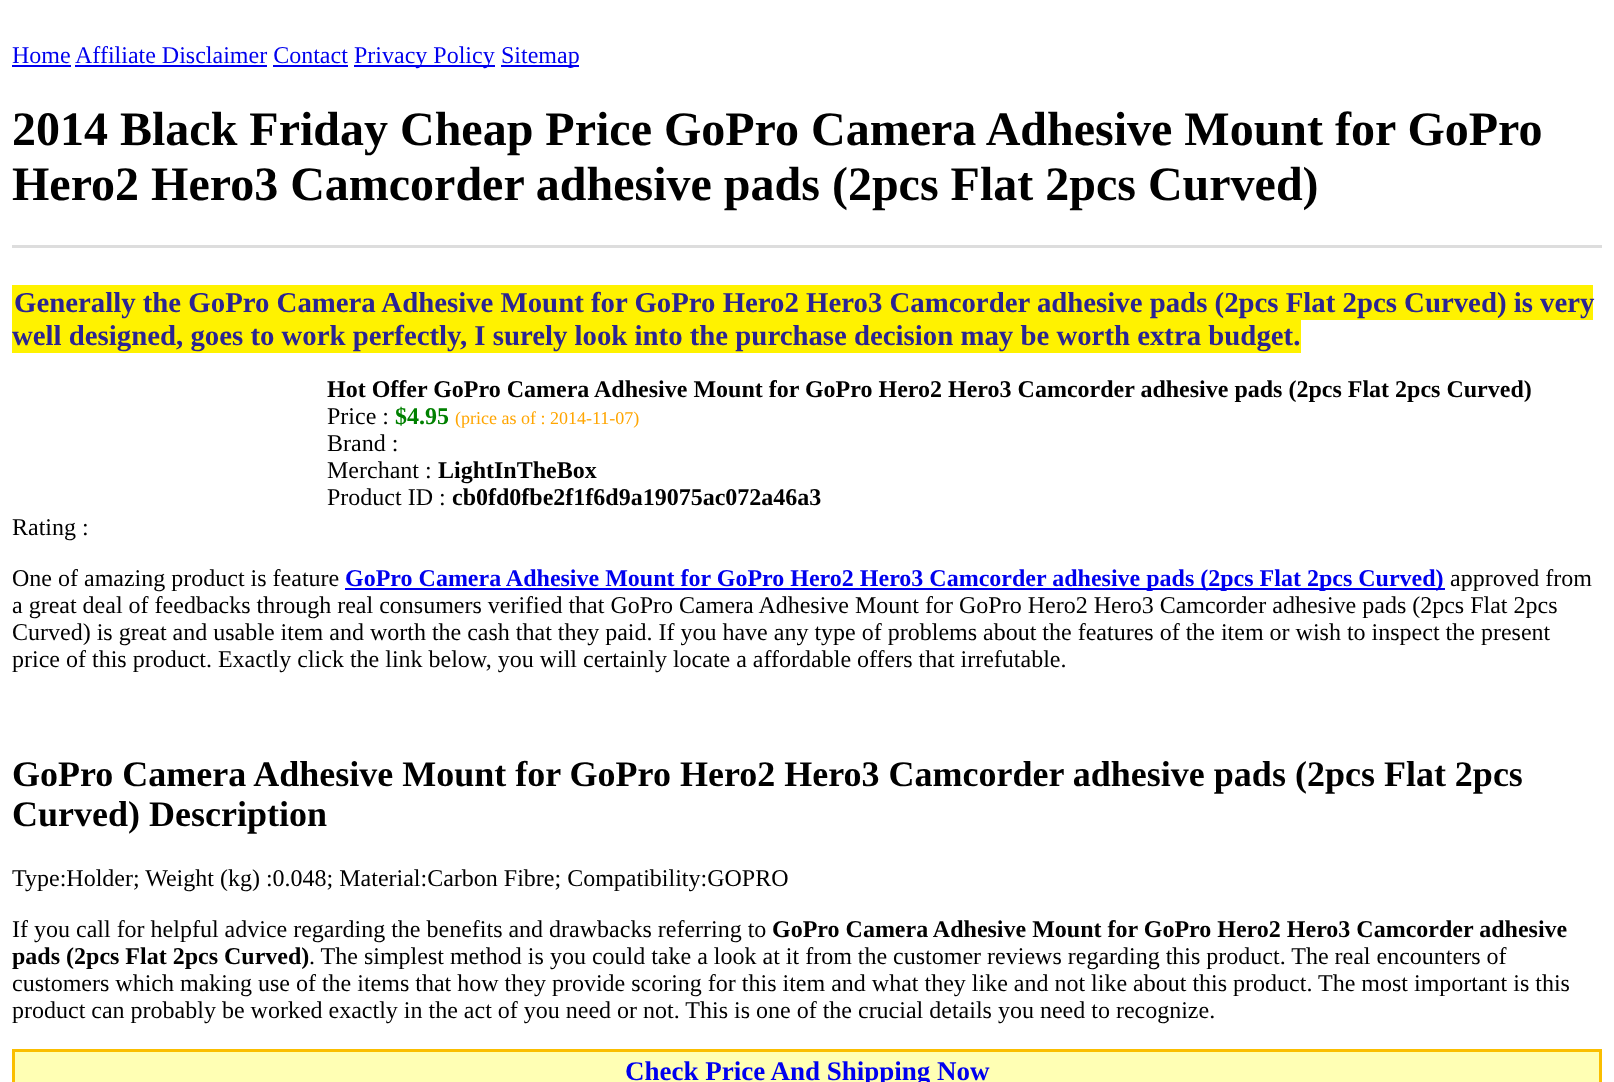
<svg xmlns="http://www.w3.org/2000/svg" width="1614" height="1082">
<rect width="100%" height="100%" fill="#fff"/>
<text x="12" y="63" style="font-family:Liberation Serif;font-size:24px;fill:#00e">Home</text>
<rect x="12" y="65" width="59" height="2" fill="#00e"/>
<text x="75" y="63" style="font-family:Liberation Serif;font-size:24px;fill:#00e">Affiliate Disclaimer Contact</text>
<rect x="75" y="65" width="192" height="2" fill="#00e"/>
<rect x="354" y="65" width="141" height="2" fill="#00e"/>
<text x="354" y="63" style="font-family:Liberation Serif;font-size:24px;fill:#00e">Privacy Policy</text>
<rect x="501" y="65" width="78" height="2" fill="#00e"/>
<text x="501" y="63" style="font-family:Liberation Serif;font-size:24px;fill:#00e">Sitemap</text>
<rect x="273" y="65" width="75" height="2" fill="#00e"/>
<text x="12" y="145" style="font-family:Liberation Serif;font-size:48px;font-weight:bold;fill:#000">2014 Black Friday Cheap Price GoPro Camera Adhesive Mount for GoPro</text>
<text x="12" y="200" style="font-family:Liberation Serif;font-size:48px;font-weight:bold;fill:#000">Hero2 Hero3 Camcorder adhesive pads (2pcs Flat 2pcs Curved)</text>
<rect x="12" y="245" width="1590" height="3" fill="#ddd"/>
<rect x="12" y="285" width="1581" height="35" fill="#fff200"/>
<text x="14" y="312" style="font-family:Liberation Serif;font-size:28.8px;font-weight:bold;fill:#2b2492">Generally the GoPro Camera Adhesive Mount for GoPro Hero2 Hero3 Camcorder adhesive pads (2pcs Flat 2pcs Curved) is very</text>
<rect x="12" y="320" width="1289" height="33" fill="#fff200"/>
<text x="12" y="345" style="font-family:Liberation Serif;font-size:28.8px;font-weight:bold;fill:#2b2492">well designed, goes to work perfectly, I surely look into the purchase decision may be worth extra budget.</text>
<text x="327" y="397" style="font-family:Liberation Serif;font-size:24px;font-weight:bold;fill:#000">Hot Offer GoPro Camera Adhesive Mount for GoPro Hero2 Hero3 Camcorder adhesive pads (2pcs Flat 2pcs Curved)</text>
<text x="327" y="424" style="font-family:Liberation Serif;font-size:24px;fill:#000">Price :</text>
<text x="395" y="424" style="font-family:Liberation Serif;font-size:24px;font-weight:bold;fill:#008000">$4.95</text>
<text x="455" y="424" style="font-family:Liberation Serif;font-size:18px;fill:#ffa500">(price as of : 2014-11-07)</text>
<text x="327" y="451" style="font-family:Liberation Serif;font-size:24px;fill:#000">Brand :</text>
<text x="327" y="478" style="font-family:Liberation Serif;font-size:24px;fill:#000">Merchant :</text>
<text x="438" y="478" style="font-family:Liberation Serif;font-size:24px;font-weight:bold;fill:#000">LightInTheBox</text>
<text x="327" y="505" style="font-family:Liberation Serif;font-size:24px;fill:#000">Product ID :</text>
<text x="452" y="505" style="font-family:Liberation Serif;font-size:24px;font-weight:bold;fill:#000">cb0fd0fbe2f1f6d9a19075ac072a46a3</text>
<text x="12" y="535" style="font-family:Liberation Serif;font-size:24px;fill:#000">Rating :</text>
<text x="12" y="586" style="font-family:Liberation Serif;font-size:24px;fill:#000">One of amazing product is feature</text>
<rect x="345" y="588" width="1100" height="2" fill="#00e"/>
<text x="345" y="586" style="font-family:Liberation Serif;font-size:24px;font-weight:bold;fill:#00e">GoPro Camera Adhesive Mount for GoPro Hero2 Hero3 Camcorder adhesive pads (2pcs Flat 2pcs Curved)</text>
<text x="1450" y="586" style="font-family:Liberation Serif;font-size:24px;fill:#000">approved from</text>
<text x="12" y="613" style="font-family:Liberation Serif;font-size:24px;fill:#000">a great deal of feedbacks through real consumers verified that GoPro Camera Adhesive Mount for GoPro Hero2 Hero3 Camcorder adhesive pads (2pcs Flat 2pcs</text>
<text x="12" y="640" style="font-family:Liberation Serif;font-size:24px;fill:#000">Curved) is great and usable item and worth the cash that they paid. If you have any type of problems about the features of the item or wish to inspect the present</text>
<text x="12" y="667" style="font-family:Liberation Serif;font-size:24px;fill:#000">price of this product. Exactly click the link below, you will certainly locate a affordable offers that irrefutable.</text>
<text x="12" y="786" style="font-family:Liberation Serif;font-size:36px;font-weight:bold;fill:#000">GoPro Camera Adhesive Mount for GoPro Hero2 Hero3 Camcorder adhesive pads (2pcs Flat 2pcs</text>
<text x="12" y="826" style="font-family:Liberation Serif;font-size:36px;font-weight:bold;fill:#000">Curved) Description</text>
<text x="12" y="886" style="font-family:Liberation Serif;font-size:24px;fill:#000">Type:Holder; Weight (kg) :0.048; Material:Carbon Fibre; Compatibility:GOPRO</text>
<text x="12" y="937" style="font-family:Liberation Serif;font-size:24px;fill:#000">If you call for helpful advice regarding the benefits and drawbacks referring to</text>
<text x="772" y="937" style="font-family:Liberation Serif;font-size:24px;font-weight:bold;fill:#000">GoPro Camera Adhesive Mount for GoPro Hero2 Hero3 Camcorder adhesive</text>
<text x="12" y="964" style="font-family:Liberation Serif;font-size:24px;font-weight:bold;fill:#000">pads (2pcs Flat 2pcs Curved)</text>
<text x="309" y="964" style="font-family:Liberation Serif;font-size:24px;fill:#000">. The simplest method is you could take a look at it from the customer reviews regarding this product. The real encounters of</text>
<text x="12" y="991" style="font-family:Liberation Serif;font-size:24px;fill:#000">customers which making use of the items that how they provide scoring for this item and what they like and not like about this product. The most important is this</text>
<text x="12" y="1018" style="font-family:Liberation Serif;font-size:24px;fill:#000">product can probably be worked exactly in the act of you need or not. This is one of the crucial details you need to recognize.</text>
<rect x="13.5" y="1050.5" width="1587" height="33" fill="#ffffb4" stroke="#fabe00" stroke-width="3"/>
<text x="625" y="1080" style="font-family:Liberation Serif;font-size:27px;font-weight:bold;fill:#00e">Check Price And Shipping Now</text>
</svg>
